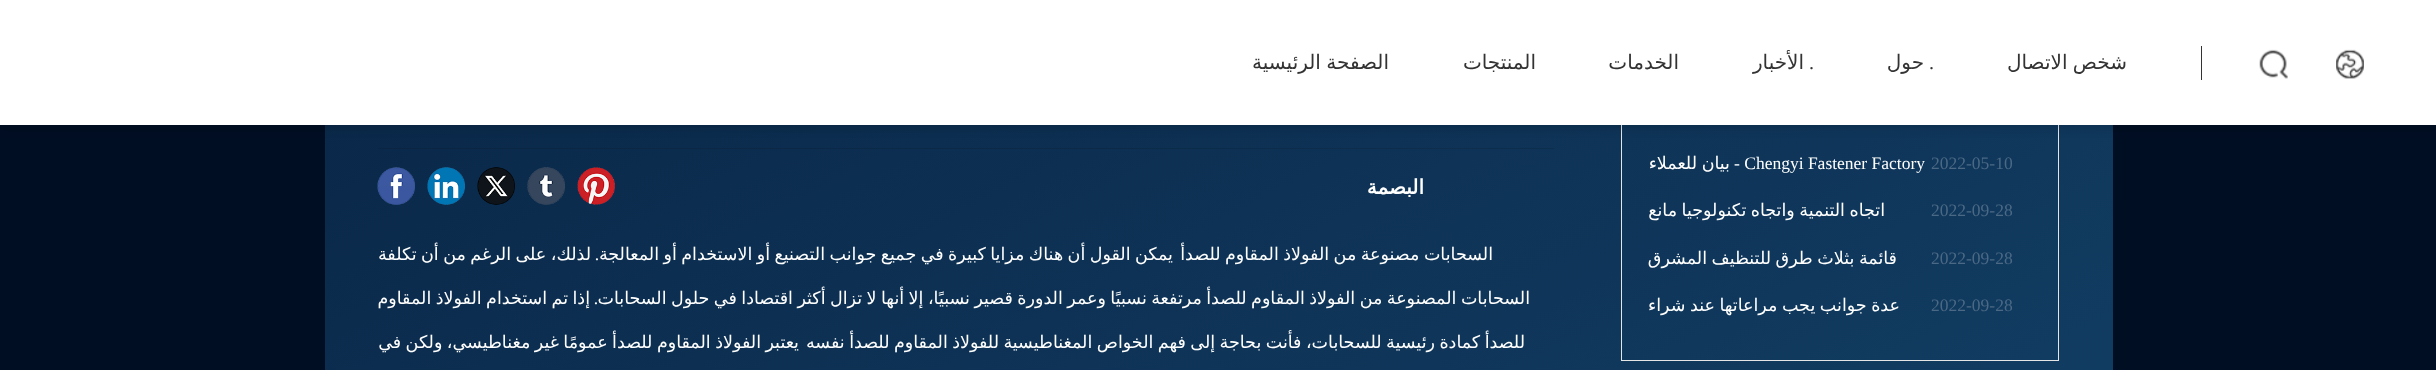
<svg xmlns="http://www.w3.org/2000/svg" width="2436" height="370">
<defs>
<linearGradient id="g1" gradientUnits="userSpaceOnUse" x1="835" y1="-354" x2="1603" y2="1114"><stop offset="0" stop-color="#092545"/><stop offset="1" stop-color="#14446b"/></linearGradient>
<linearGradient id="g2" gradientUnits="userSpaceOnUse" x1="835" y1="-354" x2="1603" y2="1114"><stop offset="0" stop-color="#08213e"/><stop offset="1" stop-color="#123d60"/></linearGradient>
</defs>
<rect width="100%" height="100%" fill="#000e23"/>
<rect x="325" y="125" width="1788" height="245" fill="url(#g1)"/>
<rect x="1621.5" y="-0.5" width="437" height="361" fill="none" stroke="#e5e5e5"/>
<rect x="1" y="1" width="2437" height="125" fill="#00000033" filter="blur(6px)"/>
<rect width="2436" height="125" fill="#fff"/>
<rect x="2201" y="46" width="1" height="34" fill="#333"/>
<image x="2336" y="49" width="28" height="30" href="media/1.png"/>
<image x="2259" y="49" width="29" height="30" href="media/2.png"/>
<text x="2127" y="69" word-spacing="-1" style="font-family:DejaVu Sans;font-size:20px;direction:rtl;fill:#333">شخص الاتصال</text>
<text x="1929" y="69" style="font-family:Liberation Serif;font-size:20px;fill:#333">.</text>
<text x="1924" y="69" style="font-family:DejaVu Sans;font-size:20px;direction:rtl;fill:#333">حول</text>
<text x="1809" y="69" style="font-family:Liberation Serif;font-size:20px;fill:#333">.</text>
<text x="1804" y="69" style="font-family:DejaVu Sans;font-size:20px;direction:rtl;fill:#333">الأخبار</text>
<text x="1679" y="69" style="font-family:DejaVu Sans;font-size:20px;direction:rtl;fill:#333">الخدمات</text>
<text x="1536" y="69" style="font-family:DejaVu Sans;font-size:20px;direction:rtl;fill:#333">المنتجات</text>
<text x="1389" y="69" word-spacing="-1" style="font-family:DejaVu Sans;font-size:20px;direction:rtl;fill:#333">الصفحة الرئيسية</text>
<rect x="378" y="148" width="1176" height="1" fill="url(#g2)"/>
<text x="1931" y="169" style="font-family:Liberation Serif;font-size:17.5px;fill:#4b6984">2022-05-10</text>
<text x="1925" y="169" style="font-family:Liberation Serif;font-size:17.5px;direction:rtl;fill:#fff">Chengyi Fastener Factory -</text>
<text x="1730" y="169" style="font-family:DejaVu Sans;font-size:17.5px;direction:rtl;fill:#fff">بيان</text>
<text x="1697" y="169" style="font-family:DejaVu Sans;font-size:17.5px;direction:rtl;fill:#fff">للعملاء</text>
<text x="1931" y="216" style="font-family:Liberation Serif;font-size:17.5px;fill:#4b6984">2022-09-28</text>
<text x="1885" y="216" word-spacing="-1" style="font-family:DejaVu Sans;font-size:17.5px;direction:rtl;fill:#fff">اتجاه التنمية واتجاه تكنولوجيا مانع</text>
<text x="1931" y="264" style="font-family:Liberation Serif;font-size:17.5px;fill:#4b6984">2022-09-28</text>
<text x="1897" y="264" word-spacing="-1" style="font-family:DejaVu Sans;font-size:17.5px;direction:rtl;fill:#fff">قائمة بثلاث طرق للتنظيف المشرق</text>
<text x="1931" y="311" style="font-family:Liberation Serif;font-size:17.5px;fill:#4b6984">2022-09-28</text>
<text x="1900" y="311" word-spacing="-1" style="font-family:DejaVu Sans;font-size:17.5px;direction:rtl;fill:#fff">عدة جوانب يجب مراعاتها عند شراء</text>
<text x="1424" y="194" style="font-family:DejaVu Sans;font-size:20px;font-weight:bold;direction:rtl;fill:#fff">البصمة</text>
<image x="577" y="167" width="38" height="38" href="media/3.png"/>
<image x="527" y="167" width="38" height="38" href="media/4.png"/>
<image x="477" y="167" width="38" height="38" href="media/5.png"/>
<image x="427" y="167" width="38" height="38" href="media/6.png"/>
<image x="377" y="167" width="38" height="38" href="media/7.png"/>
<text x="1493" y="260" word-spacing="-1.1" style="font-family:DejaVu Sans;font-size:17.5px;direction:rtl;fill:#fff">السحابات مصنوعة من الفولاذ المقاوم للصدأ</text>
<text x="1173" y="260" word-spacing="-1.1" style="font-family:DejaVu Sans;font-size:17.5px;direction:rtl;fill:#fff">يمكن القول أن هناك مزايا كبيرة في جميع جوانب التصنيع أو الاستخدام أو المعالجة</text>
<text x="599" y="260" style="font-family:Liberation Serif;font-size:17.5px;direction:rtl;fill:#fff">.</text>
<text x="591" y="260" word-spacing="-1.1" style="font-family:DejaVu Sans;font-size:17.5px;direction:rtl;fill:#fff">لذلك، على الرغم من أن تكلفة</text>
<text x="1530" y="304" word-spacing="-1.1" style="font-family:DejaVu Sans;font-size:17.5px;direction:rtl;fill:#fff">السحابات المصنوعة من الفولاذ المقاوم للصدأ مرتفعة نسبيًا وعمر الدورة قصير نسبيًا، إلا أنها لا تزال أكثر اقتصادا في حلول السحابات</text>
<text x="598" y="304" style="font-family:Liberation Serif;font-size:17.5px;direction:rtl;fill:#fff">.</text>
<text x="590" y="304" word-spacing="-1.1" style="font-family:DejaVu Sans;font-size:17.5px;direction:rtl;fill:#fff">إذا تم استخدام الفولاذ المقاوم</text>
<text x="1525" y="348" word-spacing="-1.1" style="font-family:DejaVu Sans;font-size:17.5px;direction:rtl;fill:#fff">للصدأ كمادة رئيسية للسحابات، فأنت بحاجة إلى فهم الخواص المغناطيسية للفولاذ المقاوم للصدأ نفسه</text>
<text x="799" y="348" word-spacing="-1.1" style="font-family:DejaVu Sans;font-size:17.5px;direction:rtl;fill:#fff">يعتبر الفولاذ المقاوم للصدأ عمومًا غير مغناطيسي، ولكن في</text>
</svg>
